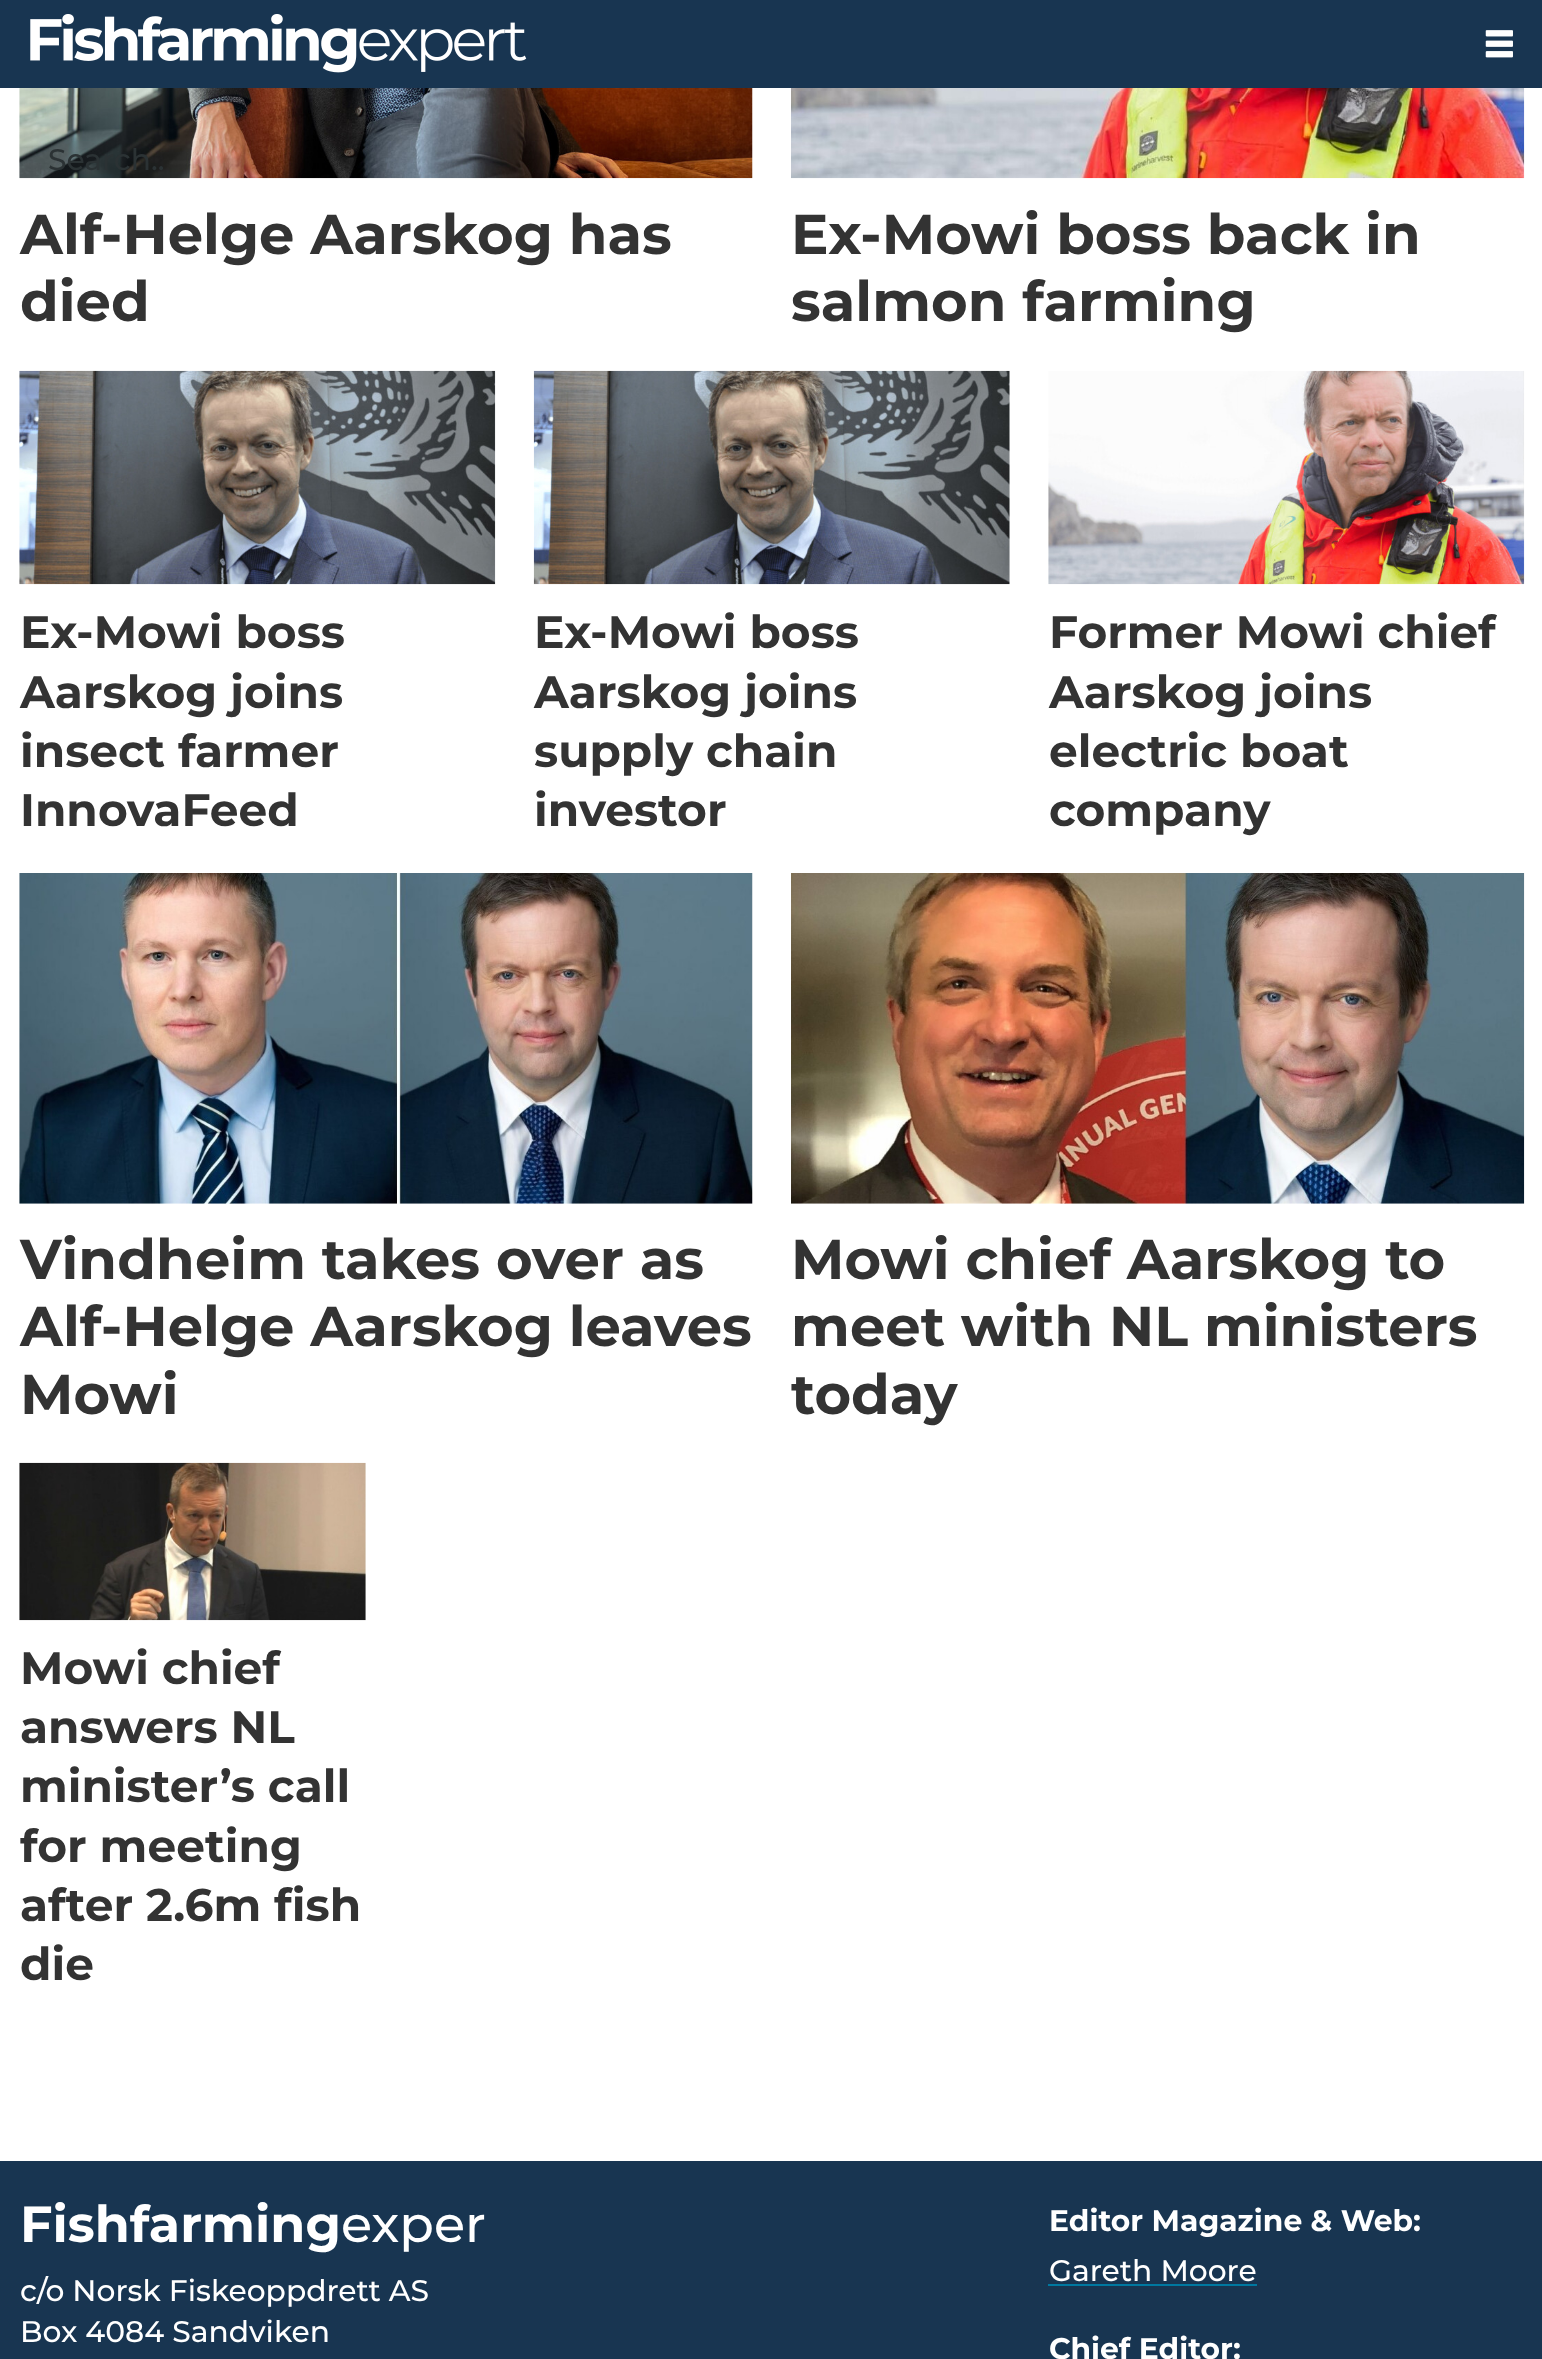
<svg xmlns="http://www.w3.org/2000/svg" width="1542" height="2359">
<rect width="100%" height="100%" fill="#fff"/>
<rect width="1542" height="88" fill="#183551"/>
<image x="30" y="14" width="497" height="59" href="media/1.png"/>
<image x="1485" y="30" width="28" height="28" href="media/2.png"/>
<image x="19" y="88" width="734" height="91" href="media/3.png"/>
<text x="48" y="170" style="font-family:Montserrat;font-size:29.75px;font-weight:500;fill:#2b3234">Search..</text>
<text x="20" y="254" style="font-family:Montserrat;font-size:56px;font-weight:bold;fill:#333">Alf-Helge Aarskog has</text>
<text x="20" y="321" style="font-family:Montserrat;font-size:56px;font-weight:bold;fill:#333">died</text>
<image x="791" y="88" width="734" height="91" href="media/4.png"/>
<text x="791" y="254" style="font-family:Montserrat;font-size:56px;font-weight:bold;fill:#333">Ex-Mowi boss back in</text>
<text x="791" y="321" style="font-family:Montserrat;font-size:56px;font-weight:bold;fill:#333">salmon farming</text>
<image x="19" y="370" width="477" height="215" href="media/5.png"/>
<text x="20" y="648" style="font-family:Montserrat;font-size:45.5px;font-weight:bold;fill:#333">Ex-Mowi boss</text>
<text x="20" y="708" style="font-family:Montserrat;font-size:45.5px;font-weight:bold;fill:#333">Aarskog joins</text>
<text x="20" y="767" style="font-family:Montserrat;font-size:45.5px;font-weight:bold;fill:#333">insect farmer</text>
<text x="20" y="826" style="font-family:Montserrat;font-size:45.5px;font-weight:bold;fill:#333">InnovaFeed</text>
<image x="533" y="370" width="477" height="215" href="media/6.png"/>
<text x="534" y="648" style="font-family:Montserrat;font-size:45.5px;font-weight:bold;fill:#333">Ex-Mowi boss</text>
<text x="534" y="708" style="font-family:Montserrat;font-size:45.5px;font-weight:bold;fill:#333">Aarskog joins</text>
<text x="534" y="767" style="font-family:Montserrat;font-size:45.5px;font-weight:bold;fill:#333">supply chain</text>
<text x="534" y="826" style="font-family:Montserrat;font-size:45.5px;font-weight:bold;fill:#333">investor</text>
<image x="1048" y="370" width="477" height="215" href="media/7.png"/>
<text x="1049" y="648" style="font-family:Montserrat;font-size:45.5px;font-weight:bold;fill:#333">Former Mowi chief</text>
<text x="1049" y="708" style="font-family:Montserrat;font-size:45.5px;font-weight:bold;fill:#333">Aarskog joins</text>
<text x="1049" y="767" style="font-family:Montserrat;font-size:45.5px;font-weight:bold;fill:#333">electric boat</text>
<text x="1049" y="826" style="font-family:Montserrat;font-size:45.5px;font-weight:bold;fill:#333">company</text>
<image x="19" y="873" width="734" height="331" href="media/8.png"/>
<text x="20" y="1279" style="font-family:Montserrat;font-size:56px;font-weight:bold;fill:#333">Vindheim takes over as</text>
<text x="20" y="1346" style="font-family:Montserrat;font-size:56px;font-weight:bold;fill:#333">Alf-Helge Aarskog leaves</text>
<text x="20" y="1414" style="font-family:Montserrat;font-size:56px;font-weight:bold;fill:#333">Mowi</text>
<image x="791" y="873" width="734" height="331" href="media/9.png"/>
<text x="791" y="1279" style="font-family:Montserrat;font-size:56px;font-weight:bold;fill:#333">Mowi chief Aarskog to</text>
<text x="791" y="1346" style="font-family:Montserrat;font-size:56px;font-weight:bold;fill:#333">meet with NL ministers</text>
<text x="791" y="1414" style="font-family:Montserrat;font-size:56px;font-weight:bold;fill:#333">today</text>
<image x="19" y="1462" width="347" height="159" href="media/10.png"/>
<text x="20" y="1684" style="font-family:Montserrat;font-size:45.5px;font-weight:bold;fill:#333">Mowi chief</text>
<text x="20" y="1743" style="font-family:Montserrat;font-size:45.5px;font-weight:bold;fill:#333">answers NL</text>
<text x="20" y="1802" style="font-family:Montserrat;font-size:45.5px;font-weight:bold;fill:#333">minister’s call</text>
<text x="20" y="1862" style="font-family:Montserrat;font-size:45.5px;font-weight:bold;fill:#333">for meeting</text>
<text x="20" y="1921" style="font-family:Montserrat;font-size:45.5px;font-weight:bold;fill:#333">after 2.6m fish</text>
<text x="20" y="1980" style="font-family:Montserrat;font-size:45.5px;font-weight:bold;fill:#333">die</text>
<rect y="2161" width="1542" height="198" fill="#183551"/>
<text x="20" y="2242" style="font-family:Montserrat;font-size:50.75px;font-weight:bold;fill:#fff">Fishfarming</text>
<text x="341" y="2242" style="font-family:Montserrat;font-size:50.75px;font-weight:500;fill:#fff">exper</text>
<text x="20" y="2301" style="font-family:Montserrat;font-size:29.75px;font-weight:500;fill:#fff">c/o Norsk Fiskeoppdrett AS</text>
<text x="20" y="2342" style="font-family:Montserrat;font-size:29.75px;font-weight:500;fill:#fff">Box 4084 Sandviken</text>
<text x="1049" y="2231" style="font-family:Montserrat;font-size:29.75px;font-weight:bold;fill:#fff">Editor Magazine &amp; Web:</text>
<text x="1049" y="2281" style="font-family:Montserrat;font-size:29.75px;font-weight:500;fill:#fff">Gareth Moore</text>
<rect x="1048" y="2284" width="209" height="2" fill="#0078a0"/>
<text x="1049" y="2359" style="font-family:Montserrat;font-size:29.75px;font-weight:bold;fill:#fff">Chief Editor:</text>
</svg>
